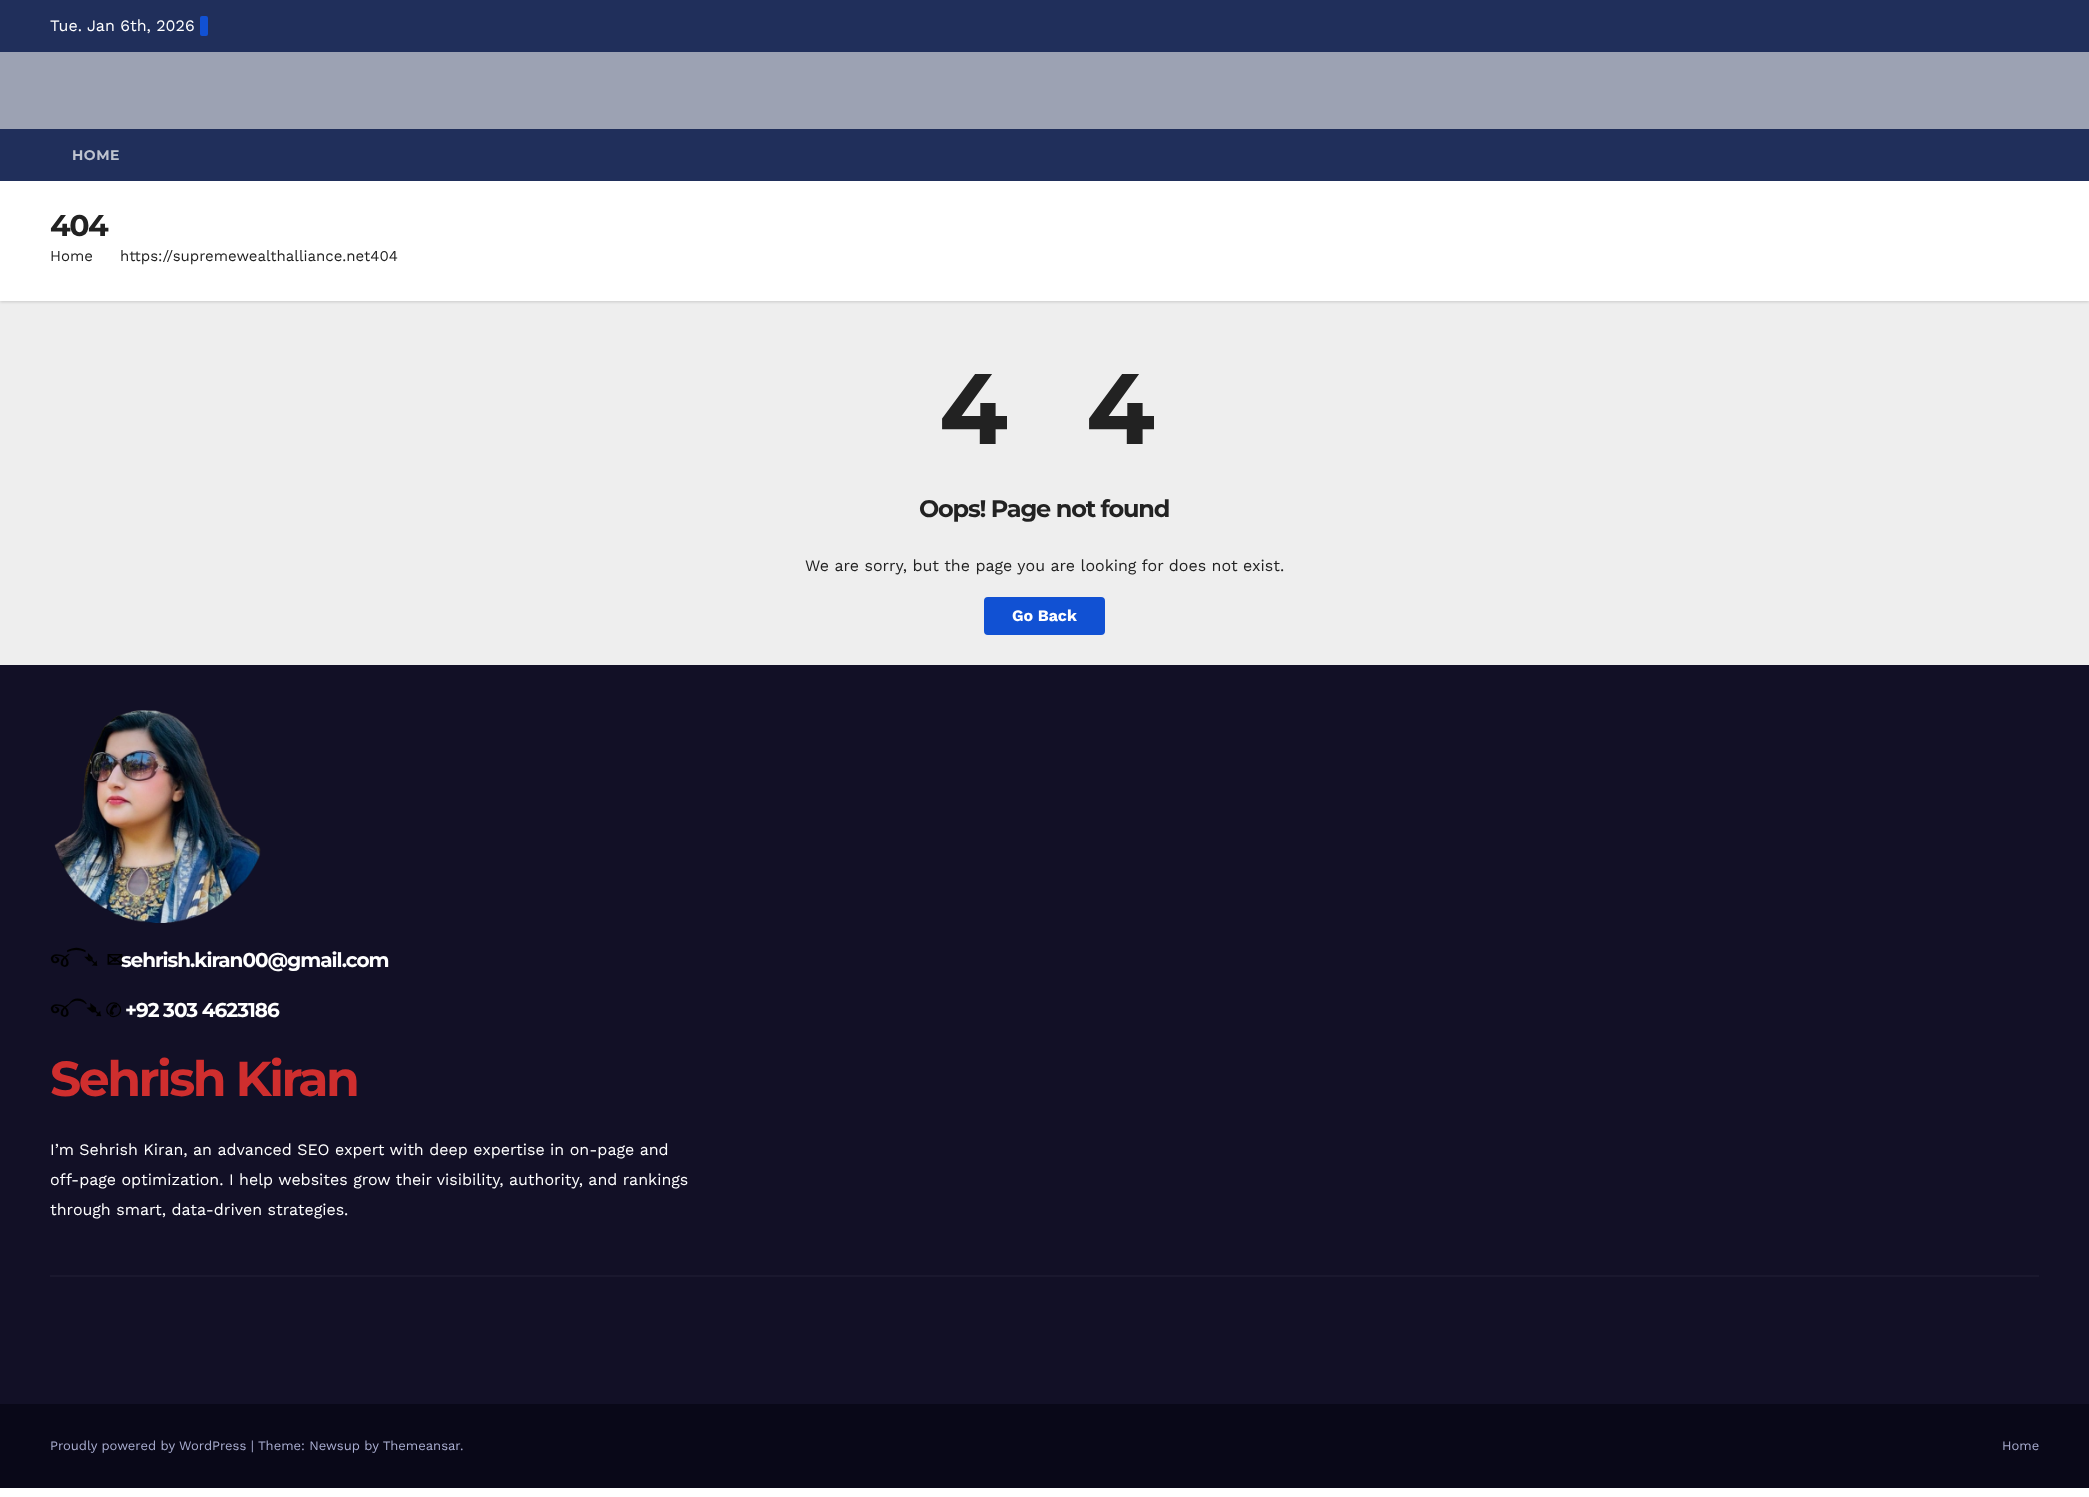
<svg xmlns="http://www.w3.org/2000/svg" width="2089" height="1497">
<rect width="100%" height="100%" fill="#fff"/>
<rect y="301" width="2089" height="364" fill="#eee"/>
<rect width="2089" height="52" fill="#202f5b"/>
<text x="50" y="31" style="font-family:Work Sans;font-size:16px;fill:#fff">Tue. Jan 6th, 2026</text>
<rect x="200" y="16" width="8" height="20" rx="2" fill="#1151d3"/>
<rect y="52" width="2089" height="77" fill="#9ca2b3"/>
<rect y="182" width="2089" height="120" fill="#00000026" filter="blur(1.5px)"/>
<rect y="129" width="2089" height="52" fill="#202f5b"/>
<text x="72" y="160" style="font-family:Montserrat;font-size:14px;font-weight:bold;letter-spacing:0.5px;fill:#bec3cf">HOME</text>
<rect y="181" width="2089" height="120" fill="#fff"/>
<text x="50" y="236" style="font-family:Montserrat;font-size:30px;font-weight:bold;letter-spacing:-1.5px;fill:#222">404</text>
<text x="50" y="261" style="font-family:Work Sans;font-size:15px;fill:#222">Home</text>
<text x="120" y="261" style="font-family:Work Sans;font-size:15px;fill:#222">https://supremewealthalliance.net404</text>
<text x="939" y="444" style="font-family:Montserrat;font-size:100px;font-weight:bold;letter-spacing:-5px;fill:#222">4</text>
<text x="1086" y="444" style="font-family:Montserrat;font-size:100px;font-weight:bold;letter-spacing:-5px;fill:#222">4</text>
<text x="919" y="517" style="font-family:Montserrat;font-size:24px;font-weight:bold;letter-spacing:-1.2px;fill:#222">Oops! Page not found</text>
<text x="805" y="571" style="font-family:Work Sans;font-size:16px;fill:#222">We are sorry, but the page you are looking for does not exist.</text>
<rect x="985" y="598" width="119" height="36" rx="3" fill="#1151d3" stroke="#1151d3" stroke-width="2"/>
<text x="1012" y="621" style="font-family:Work Sans;font-size:16px;font-weight:bold;fill:#fff">Go Back</text>
<rect y="665" width="2089" height="739" fill="#121026"/>
<image x="54" y="710" width="207" height="213" href="media/1.png"/>
<text x="50" y="967" style="font-family:FreeSerif;font-size:20px;font-weight:bold;letter-spacing:-1px;fill:#000">જ</text>
<text x="68" y="967" word-spacing="2" style="font-family:DejaVu Sans;font-size:20px;font-weight:bold;letter-spacing:-1px;fill:#000">⁀➴ ✉︎</text>
<text x="121" y="967" style="font-family:Montserrat;font-size:20px;font-weight:bold;letter-spacing:-1px;fill:#fff">sehrish.kiran00@gmail.com</text>
<text x="50" y="1017" word-spacing="1" style="font-family:FreeSerif;font-size:20px;font-weight:bold;letter-spacing:-1px;fill:#000">જ⁀➴ ✆</text>
<text x="125" y="1017" style="font-family:Montserrat;font-size:20px;font-weight:bold;letter-spacing:-1px;fill:#fff">+92 303 4623186</text>
<text x="50" y="1096" style="font-family:Montserrat;font-size:49px;font-weight:bold;letter-spacing:-2.5px;fill:#cf2e2e">Sehrish Kiran</text>
<text x="50" y="1155" style="font-family:Work Sans;font-size:16px;fill:#fff">I’m Sehrish Kiran, an advanced SEO expert with deep expertise in on-page and</text>
<text x="50" y="1185" style="font-family:Work Sans;font-size:16px;fill:#fff">off-page optimization. I help websites grow their visibility, authority, and rankings</text>
<text x="50" y="1215" style="font-family:Work Sans;font-size:16px;fill:#fff">through smart, data-driven strategies.</text>
<rect x="50" y="1275" width="1989" height="2" fill="#1a182e"/>
<rect y="1404" width="2089" height="84" fill="#090818"/>
<text x="50" y="1450" style="font-family:Work Sans;font-size:13px;fill:#aaaed1">Proudly powered by WordPress |</text>
<text x="258" y="1450" style="font-family:Work Sans;font-size:13px;fill:#aaaed1">Theme: Newsup by Themeansar</text>
<text x="460" y="1450" style="font-family:Work Sans;font-size:13px;fill:#aaaed1">.</text>
<text x="2002" y="1450" style="font-family:Work Sans;font-size:13px;fill:#aaaed1">Home</text>
</svg>
